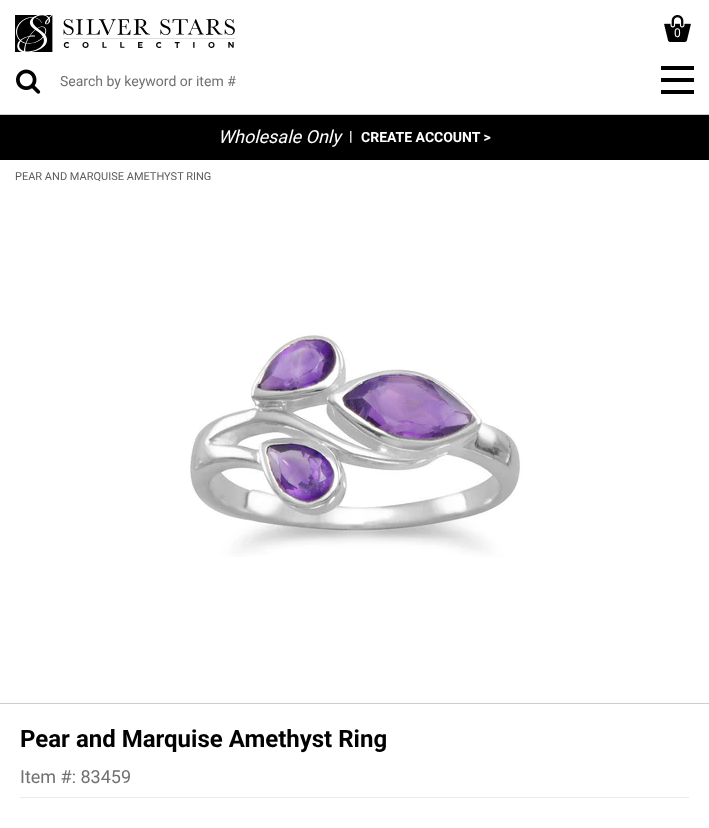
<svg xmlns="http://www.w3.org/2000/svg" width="709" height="828">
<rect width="100%" height="100%" fill="#fff"/>
<rect y="114" width="709" height="1" fill="#cecece"/>
<image x="664" y="15" width="27" height="27" href="media/1.png"/>
<text x="674" y="37" style="font-family:Roboto;font-size:12px;fill:#fff">0</text>
<rect x="661" y="66" width="33" height="4" fill="#000"/>
<rect x="661" y="78" width="33" height="4" fill="#000"/>
<rect x="661" y="90" width="33" height="4" fill="#000"/>
<image x="15" y="15" width="220" height="37" href="media/2.png"/>
<image x="16" y="69" width="25" height="25" href="media/3.png"/>
<text x="60" y="86" style="font-family:Roboto;font-size:14px;fill:#717171">Search by keyword or item #</text>
<rect y="115" width="709" height="45" fill="#000"/>
<text x="218" y="143" style="font-family:Roboto;font-size:18px;font-style:italic;fill:#fff">Wholesale Only</text>
<text x="349" y="141" style="font-family:Roboto;font-size:14px;font-weight:bold;fill:#fff">|</text>
<text x="361" y="142" style="font-family:Roboto;font-size:14px;font-weight:bold;fill:#fff">CREATE ACCOUNT &gt;</text>
<text x="15" y="180" style="font-family:Roboto;font-size:11px;fill:#5d5d5d">PEAR AND MARQUISE AMETHYST RING</text>
<image x="190" y="333" width="332" height="224" href="media/4.png"/>
<rect y="703" width="709" height="1" fill="#cecece"/>
<text x="20" y="747" style="font-family:Roboto;font-size:24px;font-weight:bold;fill:#000">Pear and Marquise Amethyst Ring</text>
<rect x="20" y="797" width="669" height="1" fill="#eaeaea"/>
<text x="20" y="783" style="font-family:Roboto;font-size:18px;fill:#717171">Item #: 83459</text>
</svg>
